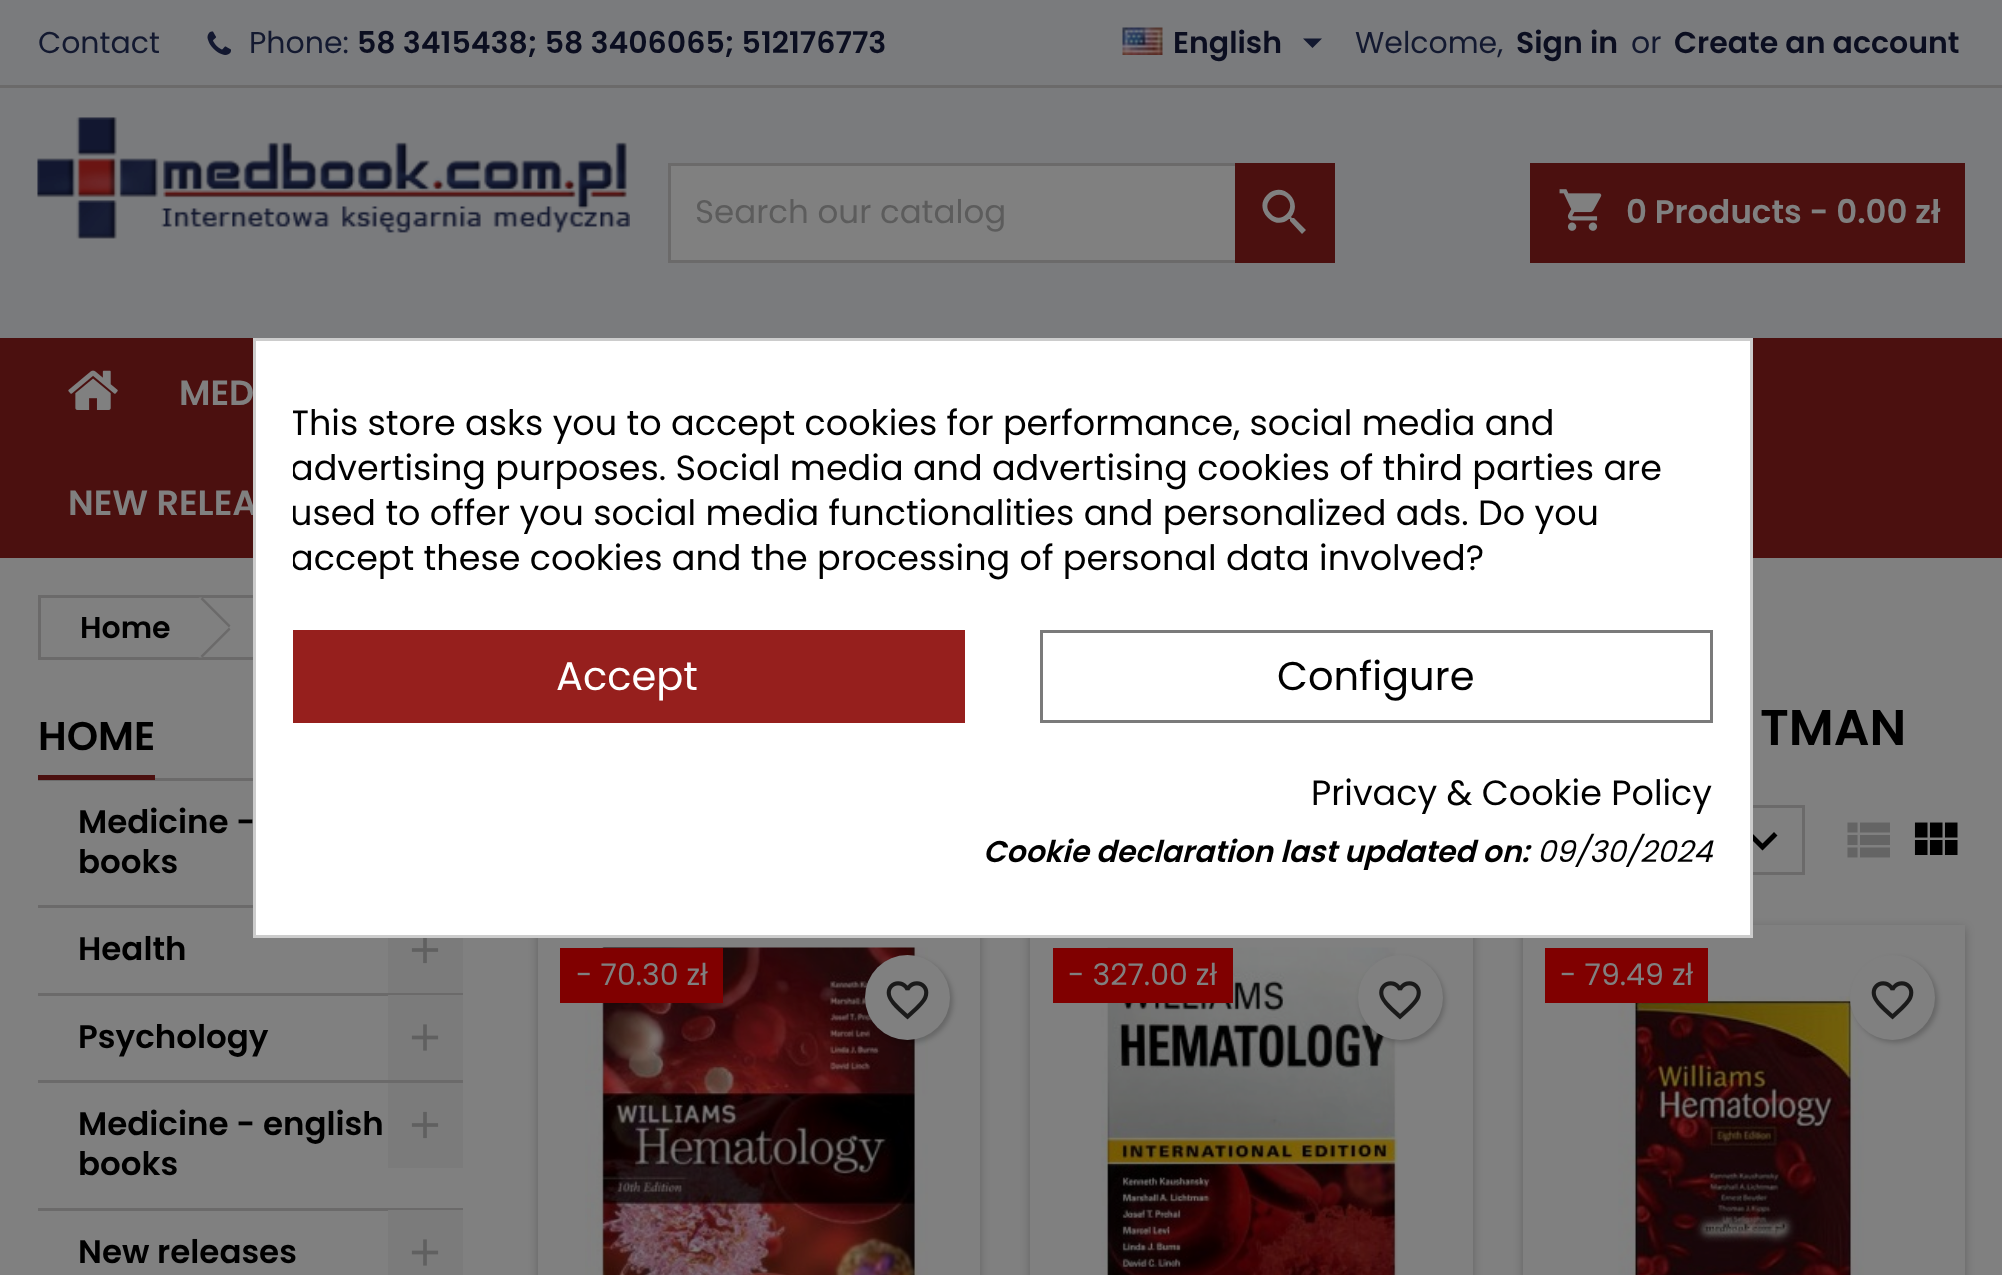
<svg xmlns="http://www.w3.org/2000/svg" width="2002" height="1275">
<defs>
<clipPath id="clip1"><path d="M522 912h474v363h-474zm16 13h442v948h-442z" clip-rule="evenodd"/></clipPath>
<clipPath id="clip2"><path d="M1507 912h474v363h-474zm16 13h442v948h-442z" clip-rule="evenodd"/></clipPath>
<clipPath id="clip3"><rect x="293" y="400" width="1420" height="180"/></clipPath>
</defs>
<rect width="100%" height="100%" fill="#808080"/>
<rect width="2002" height="85" fill="#7a7b7d"/>
<rect y="85" width="2002" height="3" fill="#6b6a6a"/>
<text x="38" y="53" style="font-family:Poppins;font-size:30px;fill:#131930">Contact</text>
<image x="207" y="31" width="24" height="24" href="media/1.png"/>
<text x="249" y="53" style="font-family:Poppins;font-size:30px;fill:#131930">Phone:</text>
<text x="357" y="53" style="font-family:Poppins;font-size:30px;font-weight:600;fill:#0b0e20">58 3415438; 58 3406065; 512176773</text>
<image x="1122" y="27" width="41" height="28" href="media/2.png"/>
<text x="1173" y="53" style="font-family:Poppins;font-size:30px;font-weight:600;fill:#0b0e20">English</text>
<path d="M1303 38.5h19l-9.5 9.5z" fill="#131930"/>
<text x="1355" y="53" style="font-family:Poppins;font-size:30px;fill:#131930">Welcome,</text>
<text x="1516" y="53" style="font-family:Poppins;font-size:30px;font-weight:600;fill:#0b0e20">Sign in</text>
<text x="1631" y="53" style="font-family:Poppins;font-size:30px;fill:#131930">or</text>
<text x="1674" y="53" style="font-family:Poppins;font-size:30px;font-weight:600;fill:#0b0e20">Create an account</text>
<rect y="88" width="2002" height="250" fill="#7a7b7d"/>
<image x="37" y="117" width="593" height="122" href="media/3.png"/>
<rect x="671" y="166" width="564" height="94" fill="#808080"/>
<rect x="669.5" y="164.5" width="664" height="97" fill="none" stroke="#6b6a6a" stroke-width="3"/>
<text x="695" y="223" style="font-family:Poppins;font-size:32.5px;fill:#5c5c5c">Search our catalog</text>
<rect x="1235" y="163" width="100" height="100" fill="#4b100f"/>
<path d="M1271 214c10 11 26-5 16-16c-11-10-27 6-16 16zm23 4l12 12l-4 4l-12-13v-2h-1c-15 13-36-10-22-24c15-15 37 6 24 22l1 1z" fill="#808080"/>
<rect x="1530" y="163" width="435" height="100" fill="#4b100f"/>
<image x="1559" y="189" width="43" height="42" href="media/4.png"/>
<text x="1626" y="223" style="font-family:Poppins;font-size:32.5px;font-weight:600;fill:#808080">0 Products - 0.00 zł</text>
<rect y="338" width="2002" height="220" fill="#4b100f"/>
<image x="68" y="370" width="50" height="40" href="media/5.png"/>
<text x="179" y="405" style="font-family:Poppins;font-size:35px;font-weight:600;fill:#808080">MED</text>
<text x="68" y="515" style="font-family:Poppins;font-size:35px;font-weight:600;fill:#808080">NEW RELEA</text>
<rect x="39.5" y="596.5" width="842" height="62" fill="none" stroke="#6b6a6a" stroke-width="3"/>
<text x="80" y="638" style="font-family:Poppins;font-size:30px;font-weight:600;fill:#000">Home</text>
<path d="M204 599l25 25c2 2 2 5 0 7l-25 25c-2 2-5 2-7 0l-25-25c-2-2-2-5 0-7l25-25c2-2 5-2 7 0z" fill="#808080"/>
<path d="M202.5 597.5l28 28l-1.5 2l-28.5-28.5z" fill="#6b6a6a"/>
<path d="M229 627.5l1.5 2l-28 28l-2-1.5z" fill="#6b6a6a"/>
<rect x="38" y="778" width="215" height="3" fill="#6b6a6a"/>
<rect x="38" y="775" width="117" height="5" fill="#4b100f"/>
<text x="38" y="750" style="font-family:Poppins;font-size:40px;font-weight:600;fill:#000">HOME</text>
<rect x="38" y="905" width="215" height="3" fill="#6b6a6a"/>
<text x="78" y="833" style="font-family:Poppins;font-size:32.5px;font-weight:600;fill:#000">Medicine -</text>
<text x="78" y="873" style="font-family:Poppins;font-size:32.5px;font-weight:600;fill:#000">books</text>
<rect x="38" y="993" width="425" height="3" fill="#6b6a6a"/>
<text x="78" y="960" style="font-family:Poppins;font-size:32.5px;font-weight:600;fill:#000">Health</text>
<rect x="388" y="938" width="75" height="55" fill="#7b7b7b"/>
<image x="411" y="938" width="28" height="26" href="media/6.png"/>
<rect x="38" y="1080" width="425" height="3" fill="#6b6a6a"/>
<text x="78" y="1048" style="font-family:Poppins;font-size:32.5px;font-weight:600;fill:#000">Psychology</text>
<rect x="388" y="995" width="75" height="85" fill="#7b7b7b"/>
<image x="411" y="1024" width="28" height="27" href="media/7.png"/>
<rect x="38" y="1208" width="425" height="3" fill="#6b6a6a"/>
<text x="78" y="1135" style="font-family:Poppins;font-size:32.5px;font-weight:600;fill:#000">Medicine - english</text>
<text x="78" y="1175" style="font-family:Poppins;font-size:32.5px;font-weight:600;fill:#000">books</text>
<rect x="388" y="1083" width="75" height="85" fill="#7b7b7b"/>
<image x="411" y="1111" width="28" height="28" href="media/8.png"/>
<text x="78" y="1263" style="font-family:Poppins;font-size:32.5px;font-weight:600;fill:#000">New releases</text>
<rect x="388" y="1210" width="75" height="65" fill="#7b7b7b"/>
<image x="411" y="1239" width="28" height="27" href="media/7.png"/>
<text x="1760" y="745" style="font-family:Poppins;font-size:50px;font-weight:600;fill:#000">TMAN</text>
<rect x="1436.5" y="806.5" width="367" height="67" fill="none" stroke="#6b6a6a" stroke-width="3"/>
<path d="M1751 832l11.5 11.5l11.5-11.5l3.5 3.5l-15 15l-15-15z" fill="#000"/>
<image x="1847" y="822" width="43" height="36" href="media/9.png"/>
<image x="1914" y="822" width="44" height="33" href="media/10.png"/>
<g clip-path="url(#clip1)">
<rect x="538" y="928" width="442" height="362" fill="#0000003d" filter="blur(5px)"/>
</g>
<image x="585" y="947" width="343" height="328" href="media/11.png"/>
<rect x="560" y="948" width="163" height="55" fill="#800000"/>
<text x="576" y="985" style="font-family:Poppins;font-size:30px;fill:#808080">- 70.30 zł</text>
<rect x="868" y="958" width="85" height="85" rx="42.5" fill="#00000033" filter="blur(2.5px)"/>
<circle cx="907.5" cy="997.5" r="42.5" fill="#808080"/>
<image x="886" y="981" width="43" height="39" href="media/12.png"/>
<rect x="1030" y="928" width="443" height="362" fill="#0000003d" filter="blur(5px)"/>
<rect x="1030" y="938" width="443" height="337" fill="#808080"/>
<image x="1101" y="947" width="297" height="328" href="media/13.png"/>
<rect x="1053" y="948" width="180" height="55" fill="#800000"/>
<text x="1068" y="985" style="font-family:Poppins;font-size:30px;fill:#808080">- 327.00 zł</text>
<rect x="1360" y="958" width="85" height="85" rx="42.5" fill="#00000033" filter="blur(2.5px)"/>
<circle cx="1400.5" cy="997.5" r="42.5" fill="#808080"/>
<image x="1379" y="981" width="42" height="39" href="media/14.png"/>
<g clip-path="url(#clip2)">
<rect x="1523" y="928" width="442" height="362" fill="#0000003d" filter="blur(5px)"/>
</g>
<image x="1618" y="996" width="246" height="279" href="media/15.png"/>
<rect x="1545" y="948" width="163" height="55" fill="#800000"/>
<text x="1560" y="985" style="font-family:Poppins;font-size:30px;fill:#808080">- 79.49 zł</text>
<rect x="1853" y="958" width="85" height="85" rx="42.5" fill="#00000033" filter="blur(2.5px)"/>
<circle cx="1892.5" cy="997.5" r="42.5" fill="#808080"/>
<image x="1871" y="981" width="43" height="39" href="media/12.png"/>
<rect x="254.5" y="339.5" width="1497" height="597" fill="#fff" stroke="#ccc" stroke-width="3"/>
<g clip-path="url(#clip3)">
<text x="290" y="435" style="font-family:Poppins;font-size:35px;fill:#000">This store asks you to accept cookies for performance, social media and</text>
<text x="290" y="480" style="font-family:Poppins;font-size:35px;fill:#000">advertising purposes. Social media and advertising cookies of third parties are</text>
<text x="290" y="525" style="font-family:Poppins;font-size:35px;fill:#000">used to offer you social media functionalities and personalized ads. Do you</text>
<text x="290" y="570" style="font-family:Poppins;font-size:35px;fill:#000">accept these cookies and the processing of personal data involved?</text>
</g>
<rect x="293" y="630" width="672" height="93" fill="#961f1d"/>
<text x="556" y="690" style="font-family:Poppins;font-size:40px;fill:#fff">Accept</text>
<rect x="1041.5" y="631.5" width="670" height="90" fill="none" stroke="#7a7a7a" stroke-width="3"/>
<text x="1277" y="690" style="font-family:Poppins;font-size:40px;fill:#000">Configure</text>
<text x="1311" y="805" style="font-family:Poppins;font-size:35px;fill:#000">Privacy &amp; Cookie Policy</text>
<text x="983" y="862" style="font-family:Poppins;font-size:30px;font-weight:600;font-style:italic;fill:#000">Cookie declaration last updated on:</text>
<text x="1537" y="862" style="font-family:Poppins;font-size:30px;font-style:italic;fill:#000">09/30/2024</text>
</svg>
